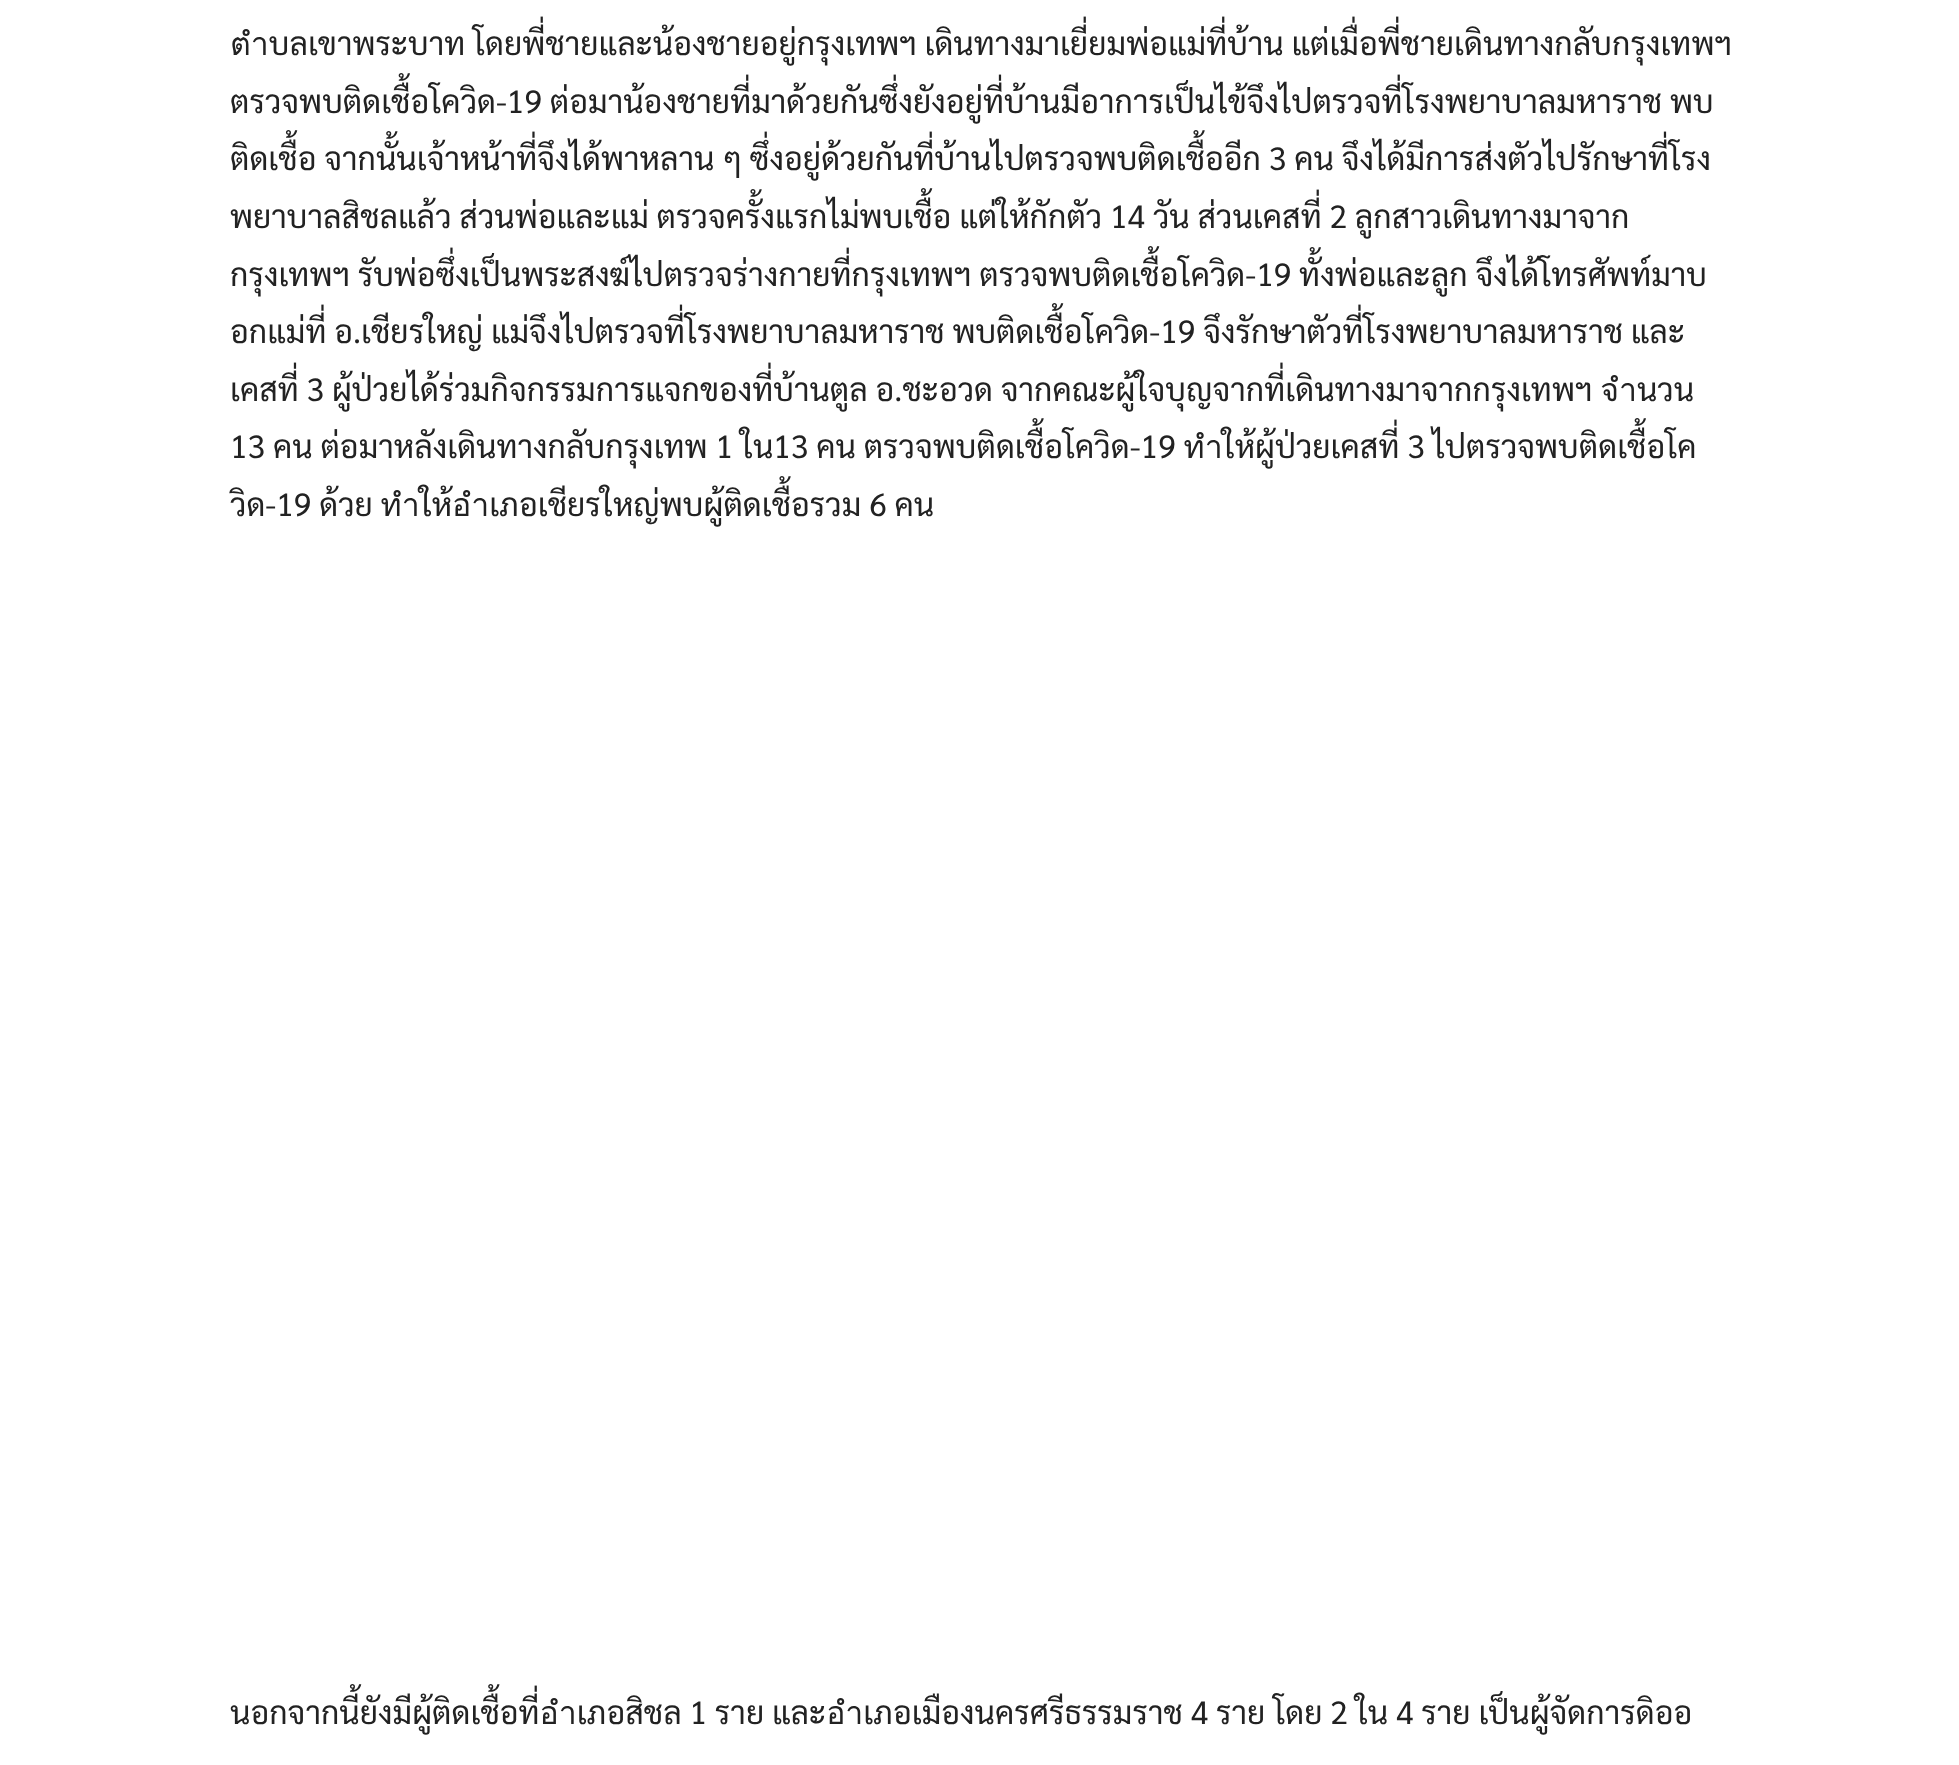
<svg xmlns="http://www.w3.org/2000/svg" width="1959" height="1765">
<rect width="100%" height="100%" fill="#fff"/>
<text x="230" y="55" style="font-family:Sarabun;font-size:32px;fill:#222">ตำบลเขาพระบาท โดยพี่ชายและน้องชายอยู่กรุงเทพฯ เดินทางมาเยี่ยมพ่อแม่ที่บ้าน แต่เมื่อพี่ชายเดินทางกลับกรุงเทพฯ</text>
<text x="230" y="113" style="font-family:Sarabun;font-size:32px;fill:#222">ตรวจพบติดเชื้อโควิด-19 ต่อมาน้องชายที่มาด้วยกันซึ่งยังอยู่ที่บ้านมีอาการเป็นไข้จึงไปตรวจที่โรงพยาบาลมหาราช พบ</text>
<text x="230" y="170" style="font-family:Sarabun;font-size:32px;fill:#222">ติดเชื้อ จากนั้นเจ้าหน้าที่จึงได้พาหลาน ๆ ซึ่งอยู่ด้วยกันที่บ้านไปตรวจพบติดเชื้ออีก 3 คน จึงได้มีการส่งตัวไปรักษาที่โรง</text>
<text x="230" y="228" style="font-family:Sarabun;font-size:32px;fill:#222">พยาบาลสิชลแล้ว ส่วนพ่อและแม่ ตรวจครั้งแรกไม่พบเชื้อ แต่ให้กักตัว 14 วัน ส่วนเคสที่ 2 ลูกสาวเดินทางมาจาก</text>
<text x="230" y="286" style="font-family:Sarabun;font-size:32px;fill:#222">กรุงเทพฯ รับพ่อซึ่งเป็นพระสงฆ์ไปตรวจร่างกายที่กรุงเทพฯ ตรวจพบติดเชื้อโควิด-19 ทั้งพ่อและลูก จึงได้โทรศัพท์มาบ</text>
<text x="230" y="343" style="font-family:Sarabun;font-size:32px;fill:#222">อกแม่ที่ อ.เชียรใหญ่ แม่จึงไปตรวจที่โรงพยาบาลมหาราช พบติดเชื้อโควิด-19 จึงรักษาตัวที่โรงพยาบาลมหาราช และ</text>
<text x="230" y="401" style="font-family:Sarabun;font-size:32px;fill:#222">เคสที่ 3 ผู้ป่วยได้ร่วมกิจกรรมการแจกของที่บ้านตูล อ.ชะอวด จากคณะผู้ใจบุญจากที่เดินทางมาจากกรุงเทพฯ จำนวน</text>
<text x="230" y="458" style="font-family:Sarabun;font-size:32px;fill:#222">13 คน ต่อมาหลังเดินทางกลับกรุงเทพ 1 ใน13 คน ตรวจพบติดเชื้อโควิด-19 ทำให้ผู้ป่วยเคสที่ 3 ไปตรวจพบติดเชื้อโค</text>
<text x="230" y="516" style="font-family:Sarabun;font-size:32px;fill:#222">วิด-19 ด้วย ทำให้อำเภอเชียรใหญ่พบผู้ติดเชื้อรวม 6 คน</text>
<text x="230" y="1724" style="font-family:Sarabun;font-size:32px;fill:#222">นอกจากนี้ยังมีผู้ติดเชื้อที่อำเภอสิชล 1 ราย และอำเภอเมืองนครศรีธรรมราช 4 ราย โดย 2 ใน 4 ราย เป็นผู้จัดการดิออ</text>
</svg>
